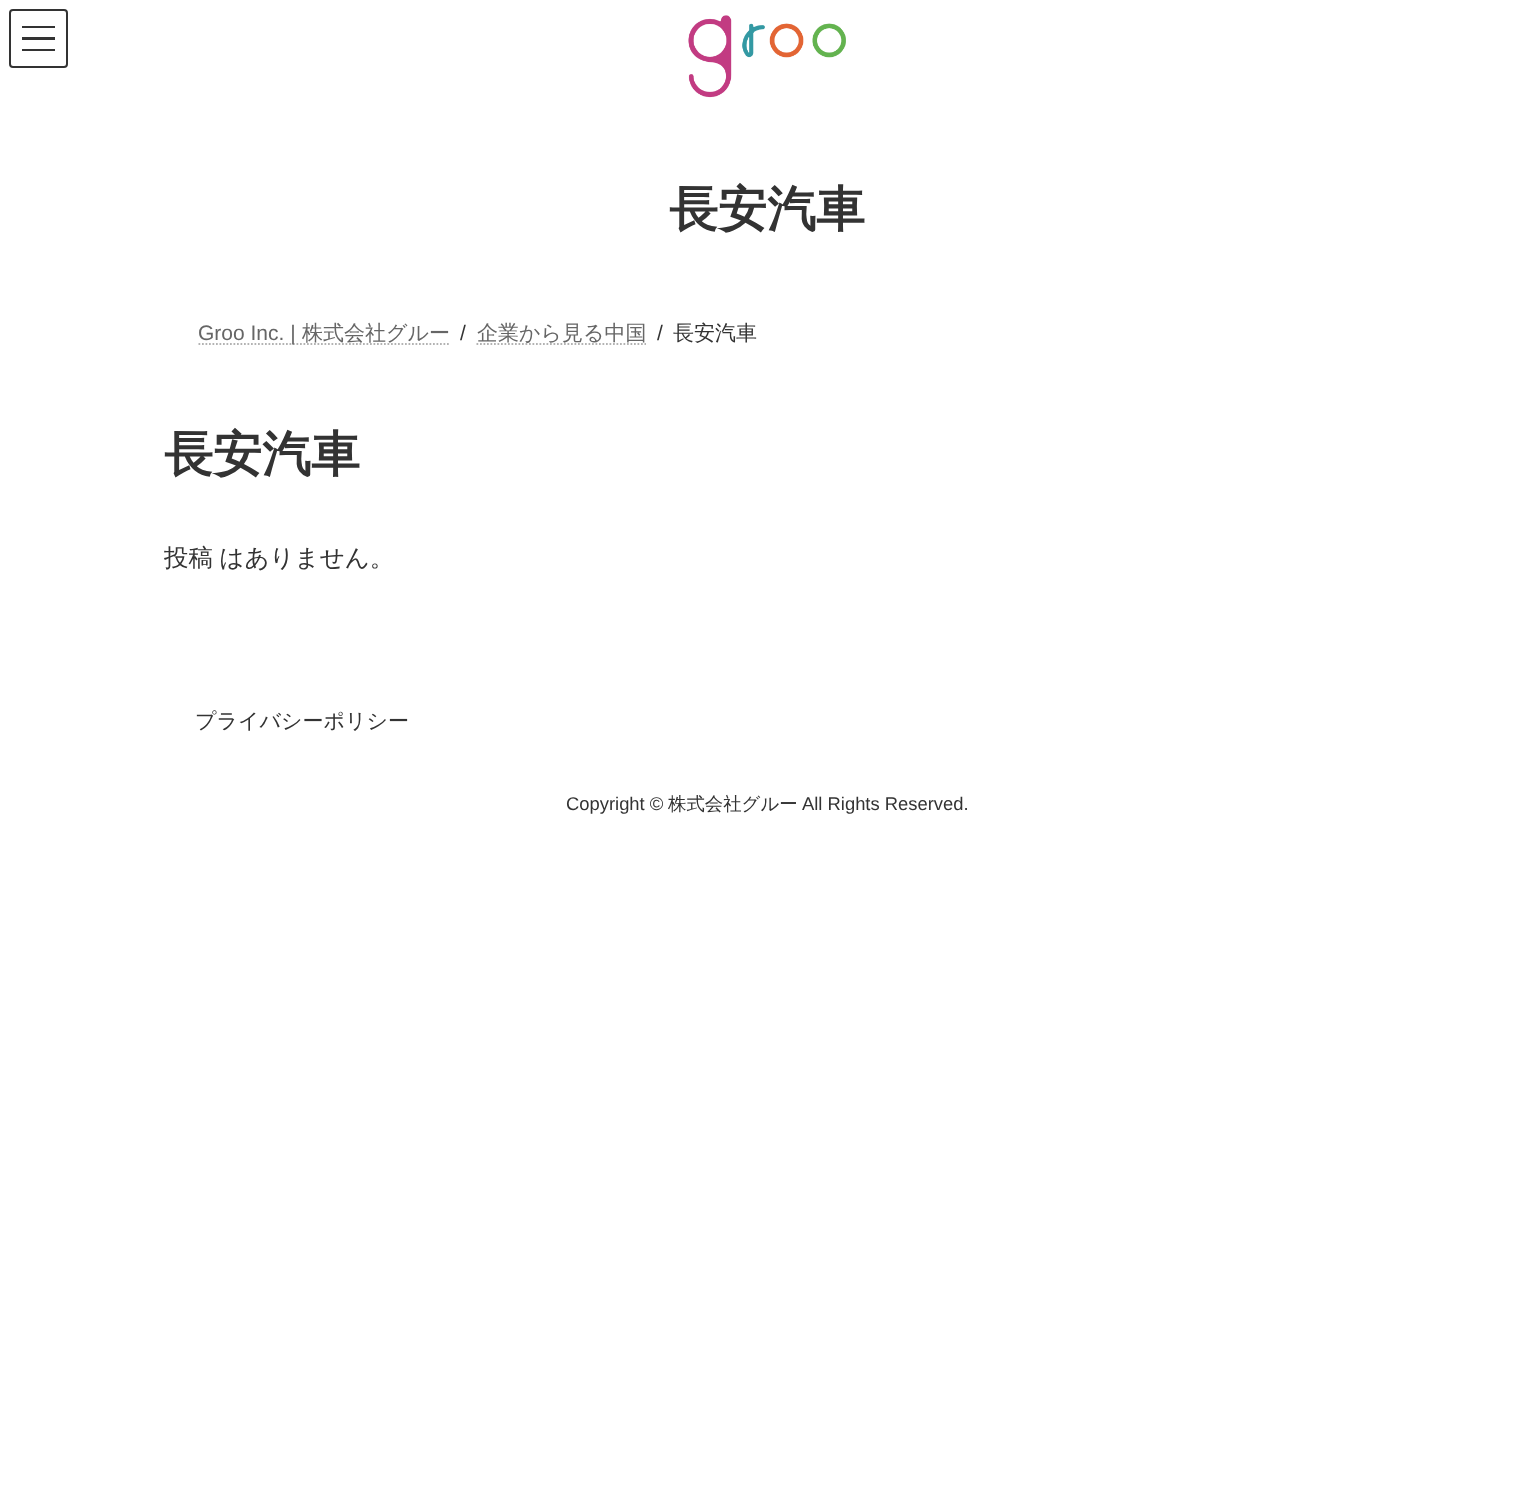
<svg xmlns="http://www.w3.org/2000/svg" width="1534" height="1504">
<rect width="100%" height="100%" fill="#fff"/>
<rect x="22" y="26" width="33" height="2" fill="#333"/>
<rect x="22" y="37" width="33" height="3" fill="#333"/>
<rect x="22" y="49" width="33" height="2" fill="#333"/>
<rect x="10" y="10" width="57" height="57" rx="3" fill="none" stroke="#333" stroke-width="2"/>
<image x="688" y="15" width="158" height="83" href="media/1.png"/>
<text x="669" y="226" style="font-family:WenQuanYi Zen Hei;font-size:49px;font-weight:bold;fill:#333">長安汽車</text>
<path d="M198.5 344h251.5" fill="none" stroke="#b3b3b3" stroke-width="1.8" stroke-dasharray="1.75 1.75"/>
<text x="198" y="340" style="font-family:Liberation Sans;font-size:21px;fill:#666">Groo Inc. |</text>
<text x="302" y="340" style="font-family:WenQuanYi Zen Hei;font-size:21px;font-weight:500;fill:#666">株式会社グルー</text>
<text x="460" y="340" style="font-family:Liberation Sans;font-size:21px;fill:#333">/</text>
<text x="477" y="340" style="font-family:WenQuanYi Zen Hei;font-size:21px;font-weight:500;fill:#666">企業から見る中国</text>
<path d="M476.5 344h169.5" fill="none" stroke="#b3b3b3" stroke-width="1.8" stroke-dasharray="1.75 1.75"/>
<text x="657" y="340" style="font-family:Liberation Sans;font-size:21px;fill:#333">/</text>
<text x="673" y="340" style="font-family:WenQuanYi Zen Hei;font-size:21px;font-weight:500;fill:#333">長安汽車</text>
<text x="164" y="471" style="font-family:WenQuanYi Zen Hei;font-size:49px;font-weight:bold;fill:#333">長安汽車</text>
<text x="164" y="566" word-spacing="-1" style="font-family:WenQuanYi Zen Hei;font-size:24.5px;font-weight:500;fill:#333">投稿 はありません。</text>
<text x="195" y="728" style="font-family:WenQuanYi Zen Hei;font-size:21px;font-weight:500;fill:#333">プライバシーポリシー</text>
<text x="566" y="810" style="font-family:Liberation Sans;font-size:18.4px;fill:#333">Copyright ©</text>
<text x="668" y="810" style="font-family:WenQuanYi Zen Hei;font-size:18.4px;font-weight:500;fill:#333">株式会社グルー</text>
<text x="802" y="810" style="font-family:Liberation Sans;font-size:18.4px;fill:#333">All Rights Reserved.</text>
</svg>
